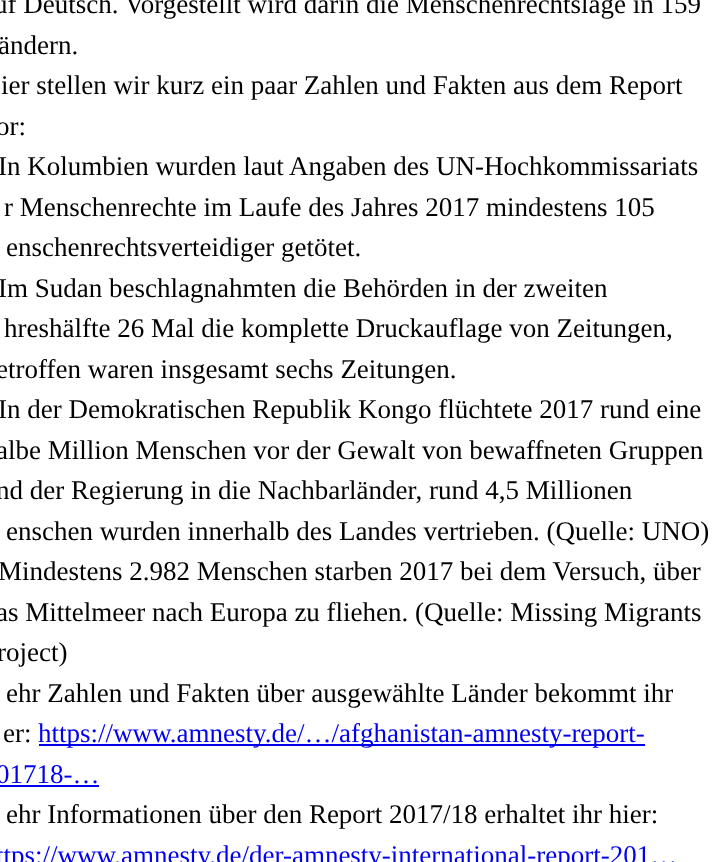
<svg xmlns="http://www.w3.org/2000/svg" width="727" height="862">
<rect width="100%" height="100%" fill="#fff"/>
<text x="-6" y="13" style="font-family:Liberation Serif;font-size:27px;fill:#000">uf Deutsch. Vorgestellt wird darin die Menschenrechtslage in 159</text>
<text x="-2" y="54" style="font-family:Liberation Serif;font-size:27px;fill:#000">ändern.</text>
<text x="1" y="94" style="font-family:Liberation Serif;font-size:27px;fill:#000">ier stellen wir kurz ein paar Zahlen und Fakten aus dem Report</text>
<text x="-4" y="135" style="font-family:Liberation Serif;font-size:27px;fill:#000">or:</text>
<text x="-2" y="175" style="font-family:Liberation Serif;font-size:27px;fill:#000">In Kolumbien wurden laut Angaben des UN-Hochkommissariats</text>
<text x="4" y="216" style="font-family:Liberation Serif;font-size:27px;fill:#000">r Menschenrechte im Laufe des Jahres 2017 mindestens 105</text>
<text x="6" y="256" style="font-family:Liberation Serif;font-size:27px;fill:#000">enschenrechtsverteidiger getötet.</text>
<text x="-2" y="297" style="font-family:Liberation Serif;font-size:27px;fill:#000">Im Sudan beschlagnahmten die Behörden in der zweiten</text>
<text x="4" y="337" style="font-family:Liberation Serif;font-size:27px;fill:#000">hreshälfte 26 Mal die komplette Druckauflage von Zeitungen,</text>
<text x="-4" y="378" style="font-family:Liberation Serif;font-size:27px;fill:#000">etroffen waren insgesamt sechs Zeitungen.</text>
<text x="-2" y="418" style="font-family:Liberation Serif;font-size:27px;fill:#000">In der Demokratischen Republik Kongo flüchtete 2017 rund eine</text>
<text x="-4" y="459" style="font-family:Liberation Serif;font-size:27px;fill:#000">albe Million Menschen vor der Gewalt von bewaffneten Gruppen</text>
<text x="-4" y="499" style="font-family:Liberation Serif;font-size:27px;fill:#000">nd der Regierung in die Nachbarländer, rund 4,5 Millionen</text>
<text x="6" y="540" style="font-family:Liberation Serif;font-size:27px;fill:#000">enschen wurden innerhalb des Landes vertrieben. (Quelle: UNO)</text>
<text x="-2" y="580" style="font-family:Liberation Serif;font-size:27px;fill:#000">Mindestens 2.982 Menschen starben 2017 bei dem Versuch, über</text>
<text x="-4" y="621" style="font-family:Liberation Serif;font-size:27px;fill:#000">as Mittelmeer nach Europa zu fliehen. (Quelle: Missing Migrants</text>
<text x="-3" y="661" style="font-family:Liberation Serif;font-size:27px;fill:#000">roject)</text>
<text x="6" y="702" style="font-family:Liberation Serif;font-size:27px;fill:#000">ehr Zahlen und Fakten über ausgewählte Länder bekommt ihr</text>
<text x="3" y="742" style="font-family:Liberation Serif;font-size:27px;fill:#000">er:</text>
<rect x="39" y="744" width="606" height="2" fill="#00e"/>
<text x="38" y="742" style="font-family:Liberation Serif;font-size:27px;fill:#00e">https://www.amnesty.de/…/afghanistan-amnesty-report-</text>
<text x="-4" y="783" style="font-family:Liberation Serif;font-size:27px;fill:#00e">01718-…</text>
<rect y="785" width="99" height="2" fill="#00e"/>
<text x="6" y="823" style="font-family:Liberation Serif;font-size:27px;fill:#000">ehr Informationen über den Report 2017/18 erhaltet ihr hier:</text>
<text x="-4" y="864" style="font-family:Liberation Serif;font-size:27px;fill:#00e">ttps://www.amnesty.de/der-amnesty-international-report-201…</text>
</svg>
